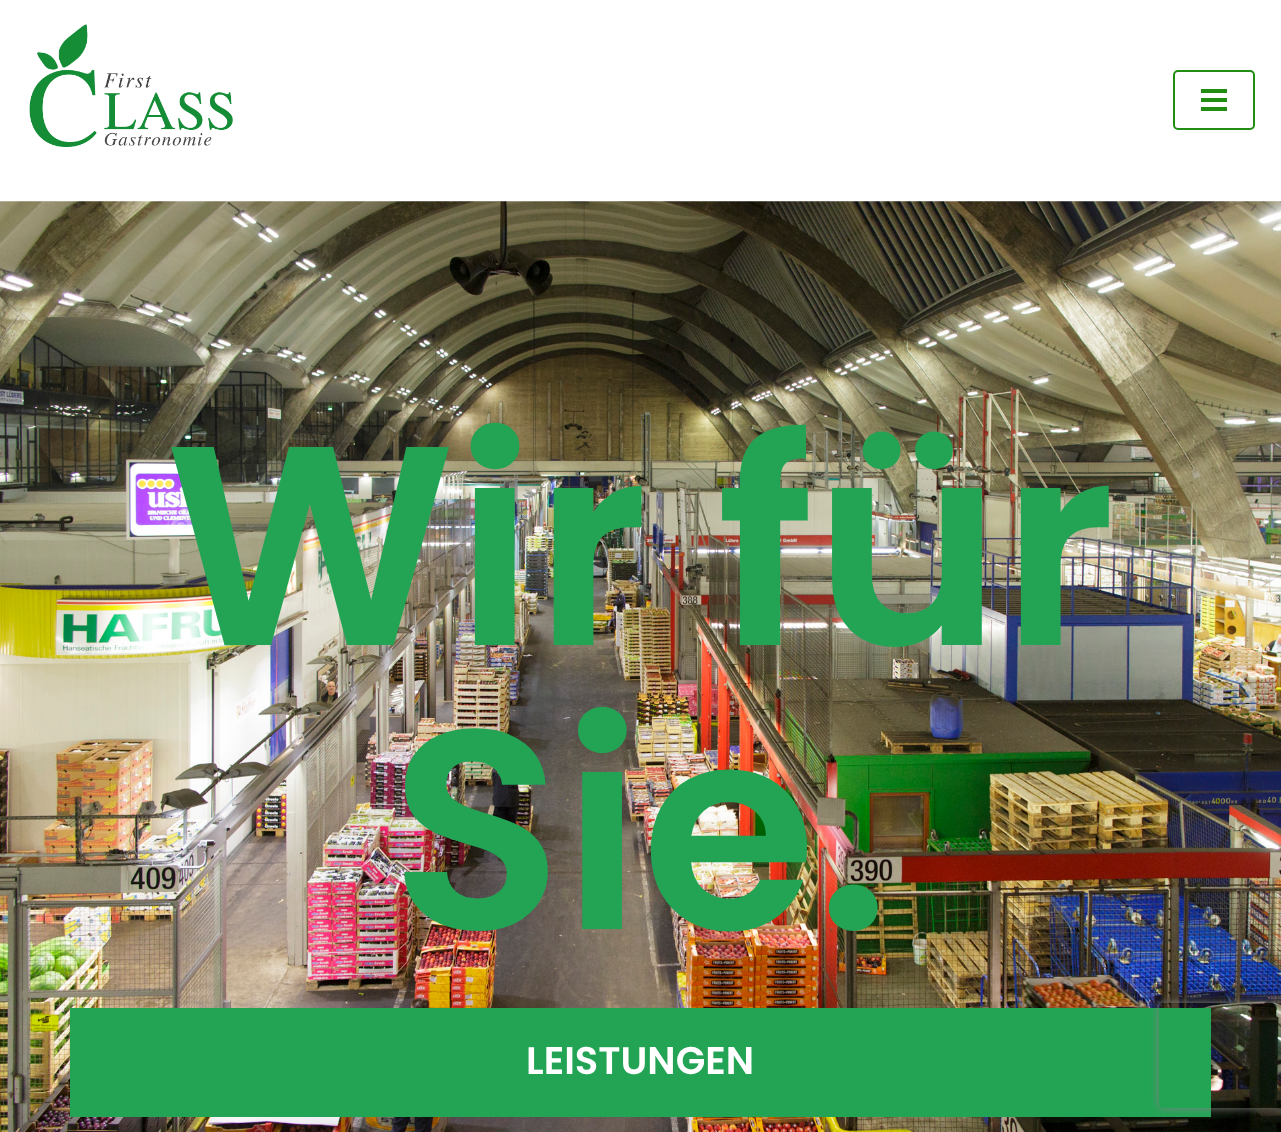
<svg xmlns="http://www.w3.org/2000/svg" width="1281" height="1132">
<defs>
<clipPath id="clip1"><path d="M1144 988h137v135h-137zm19 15h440c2 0 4 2 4 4v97c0 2-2 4-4 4h-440c-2 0-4-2-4-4v-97c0-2 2-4 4-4z" clip-rule="evenodd"/></clipPath>
</defs>
<rect width="100%" height="100%" fill="#fff"/>
<image x="29" y="24" width="204" height="123" href="media/1.png"/>
<rect x="1174" y="71" width="80" height="58" rx="4" fill="none" stroke="#218d12" stroke-width="2"/>
<rect x="1201" y="89" width="26" height="4" fill="#218d12"/>
<rect x="1201" y="98" width="26" height="4" fill="#218d12"/>
<rect x="1201" y="107" width="26" height="4" fill="#218d12"/>
<image x="0" y="201" width="1281" height="931" href="media/2.png"/>
<text x="165" y="645" style="font-family:Poppins;font-size:283.5px;font-weight:600;fill:#23a455">Wir für</text>
<text x="390" y="929" style="font-family:Poppins;font-size:283.5px;font-weight:600;fill:#23a455">Sie.</text>
<rect x="70" y="1008" width="1141" height="109" fill="#23a455"/>
<text x="526" y="1074" style="font-family:Poppins;font-size:38.5px;font-weight:600;fill:#fff">LEISTUNGEN</text>
<g clip-path="url(#clip1)">
<rect x="1159" y="1003" width="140" height="105" rx="4" fill="#808080" filter="blur(4.5px)"/>
</g>
</svg>
